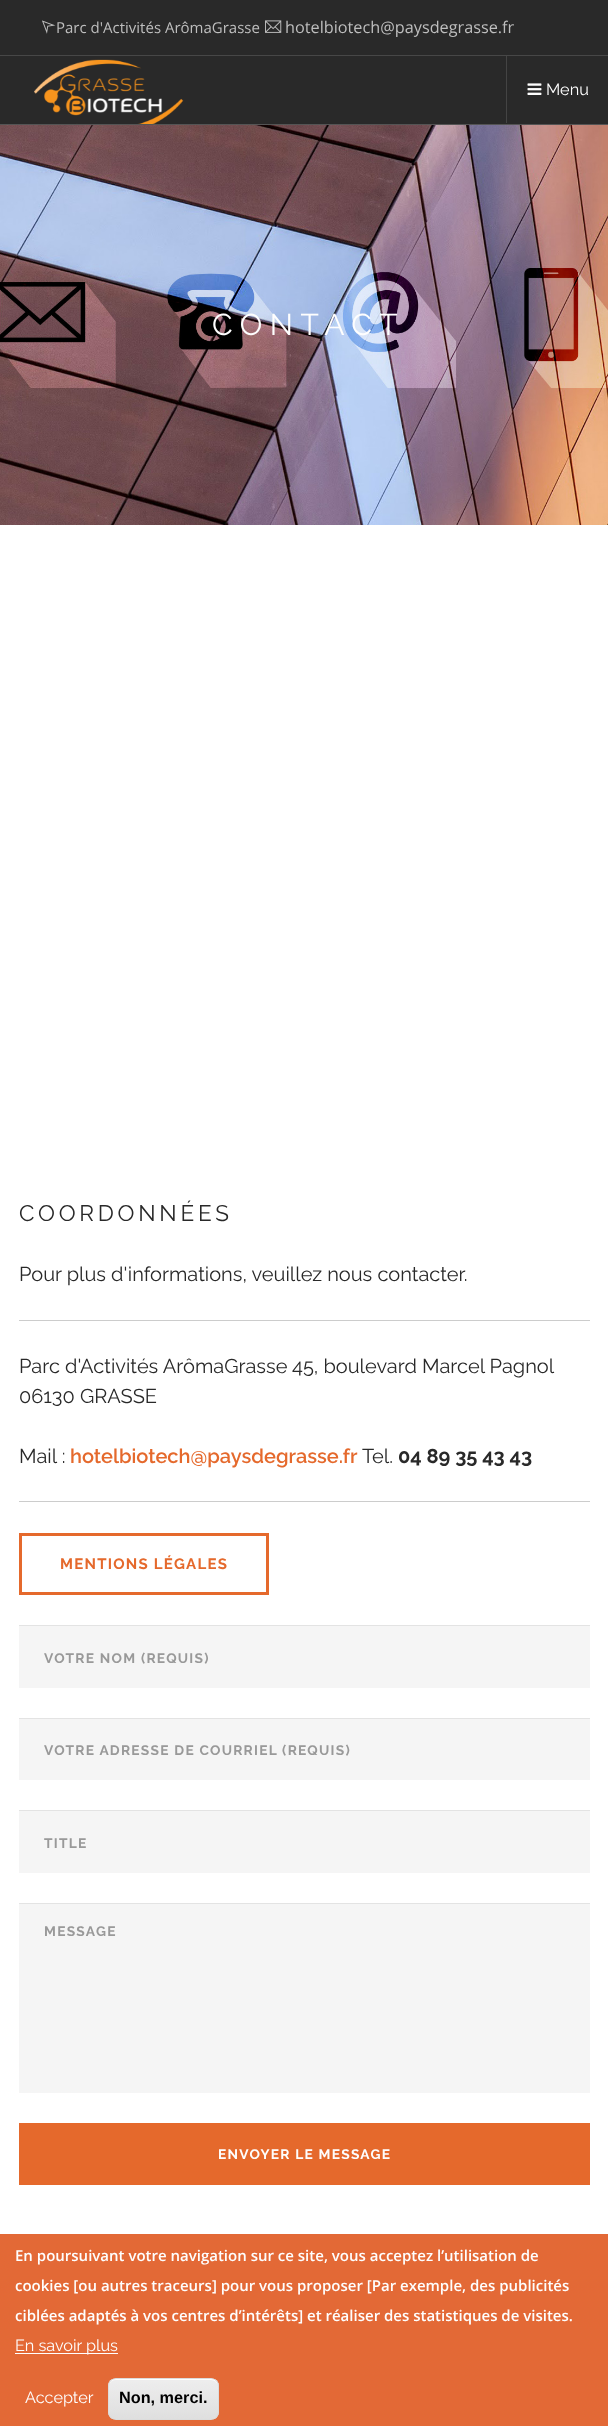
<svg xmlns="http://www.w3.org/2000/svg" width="608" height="2426">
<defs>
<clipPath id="clip1"><rect x="108" y="2378" width="111" height="42" rx="8"/></clipPath>
<linearGradient id="g1" gradientUnits="userSpaceOnUse" x1="163" y1="2379" x2="163" y2="2419"><stop offset="0.05" stop-color="#ededed"/><stop offset="1" stop-color="#dfdfdf"/></linearGradient>
</defs>
<rect width="100%" height="100%" fill="#fff"/>
<rect width="608" height="124" fill="#292929"/>
<rect y="55" width="608" height="1" fill="#474747"/>
<image x="42" y="20" width="14" height="14" href="media/1.png"/>
<text x="56" y="33" style="font-family:Open Sans;font-size:15px;fill:#bebebe">Parc d'Activités ArômaGrasse</text>
<image x="265" y="20" width="17" height="13" href="media/2.png"/>
<text x="285" y="33" style="font-family:Open Sans;font-size:16.25px;fill:#bebebe">hotelbiotech@paysdegrasse.fr</text>
<rect y="124" width="608" height="1" fill="#545454"/>
<image x="34" y="59" width="150" height="65" href="media/3.png"/>
<rect x="506" y="56" width="1" height="67" fill="#444"/>
<image x="527" y="83" width="15" height="12" href="media/4.png"/>
<text x="546" y="95" style="font-family:Raleway;font-size:16.25px;fill:#fefefe">Menu</text>
<image x="0" y="125" width="608" height="400" href="media/5.png"/>
<text x="212" y="335" style="font-family:Raleway;font-size:30px;letter-spacing:7.5px;fill:#fefefe">CONTACT</text>
<text x="19" y="1221" style="font-family:Raleway;font-size:22.5px;letter-spacing:3.75px;fill:#292929">COORDONNÉES</text>
<text x="19" y="1281" style="font-family:Raleway;font-size:20px;fill:#292929">Pour plus d'informations, veuillez nous contacter.</text>
<rect x="19" y="1320" width="571" height="1" fill="#ccc"/>
<text x="19" y="1373" style="font-family:Raleway;font-size:20px;fill:#292929">Parc d'Activités ArômaGrasse</text>
<text x="292" y="1373" style="font-family:Raleway;font-size:20px;fill:#292929">45, boulevard Marcel Pagnol</text>
<text x="19" y="1403" style="font-family:Raleway;font-size:20px;fill:#292929">06130 GRASSE</text>
<text x="19" y="1463" style="font-family:Raleway;font-size:20px;fill:#292929">Mail :</text>
<text x="70" y="1463" style="font-family:Raleway;font-size:20px;font-weight:600;fill:#e5692c">hotelbiotech@paysdegrasse.fr</text>
<text x="362" y="1463" style="font-family:Raleway;font-size:20px;fill:#292929">Tel.</text>
<text x="398" y="1463" style="font-family:Raleway;font-size:20px;font-weight:bold;fill:#292929">04 89 35 43 43</text>
<rect x="19" y="1501" width="571" height="1" fill="#ccc"/>
<rect x="20.5" y="1534.5" width="247" height="59" fill="none" stroke="#e5692c" stroke-width="3"/>
<text x="60" y="1569" style="font-family:Raleway;font-size:15px;font-weight:bold;letter-spacing:1.25px;fill:#e5692c">MENTIONS LÉGALES</text>
<rect x="19" y="1626" width="571" height="62" fill="#f5f5f5"/>
<rect x="19" y="1625" width="571" height="1" fill="#e3e3e3"/>
<text x="44" y="1663" style="font-family:Raleway;font-size:13.75px;font-weight:bold;letter-spacing:1.25px;fill:#999">VOTRE NOM (REQUIS)</text>
<rect x="19" y="1719" width="571" height="61" fill="#f5f5f5"/>
<rect x="19" y="1718" width="571" height="1" fill="#e3e3e3"/>
<text x="44" y="1755" style="font-family:Raleway;font-size:13.75px;font-weight:bold;letter-spacing:1.25px;fill:#999">VOTRE ADRESSE DE COURRIEL (REQUIS)</text>
<rect x="19" y="1811" width="571" height="62" fill="#f5f5f5"/>
<rect x="19" y="1810" width="571" height="1" fill="#e3e3e3"/>
<text x="44" y="1848" style="font-family:Raleway;font-size:13.75px;font-weight:bold;letter-spacing:1.25px;fill:#999">TITLE</text>
<rect x="19" y="1904" width="571" height="189" fill="#f5f5f5"/>
<rect x="19" y="1903" width="571" height="1" fill="#e3e3e3"/>
<text x="44" y="1936" style="font-family:Raleway;font-size:13.75px;font-weight:bold;letter-spacing:1.25px;fill:#999">MESSAGE</text>
<rect x="19" y="2123" width="571" height="62" fill="#e5692c"/>
<text x="218" y="2159" style="font-family:Raleway;font-size:13.75px;font-weight:bold;letter-spacing:1.25px;fill:#fefefe">ENVOYER LE MESSAGE</text>
<rect y="2234" width="608" height="192" fill="#e36936"/>
<text x="15" y="2261" style="font-family:Open Sans;font-size:15px;font-weight:600;fill:#fefefe">En poursuivant votre navigation sur ce site, vous acceptez l’utilisation de</text>
<text x="15" y="2291" style="font-family:Open Sans;font-size:15px;font-weight:600;fill:#fefefe">cookies [ou autres traceurs] pour vous proposer [Par exemple, des publicités</text>
<text x="15" y="2321" style="font-family:Open Sans;font-size:15px;font-weight:600;fill:#fefefe">ciblées adaptés à vos centres d’intérêts] et réaliser des statistiques de visites.</text>
<rect x="15" y="2353" width="103" height="1" fill="#fff"/>
<text x="15" y="2351" style="font-family:Raleway;font-size:16.25px;fill:#fefefe">En savoir plus</text>
<text x="25" y="2403" style="font-family:Raleway;font-size:16.25px;fill:#fefefe">Accepter</text>
<g clip-path="url(#clip1)">
<rect x="108" y="2379" width="111" height="40" fill="url(#g1)"/>
</g>
<path d="M115 2380h96c4 0 7 3 7 6c0-11-16-7-22-7h-65c-6 0-22-4-22 7c0-3 3-6 6-6z" fill="#fff"/>
<rect x="108.5" y="2378.5" width="110" height="41" rx="7.5" fill="none" stroke="#dcdcdc"/>
<text x="119" y="2403" style="font-family:Liberation Sans;font-size:16.25px;font-weight:bold;fill:#000">Non, merci.</text>
</svg>
